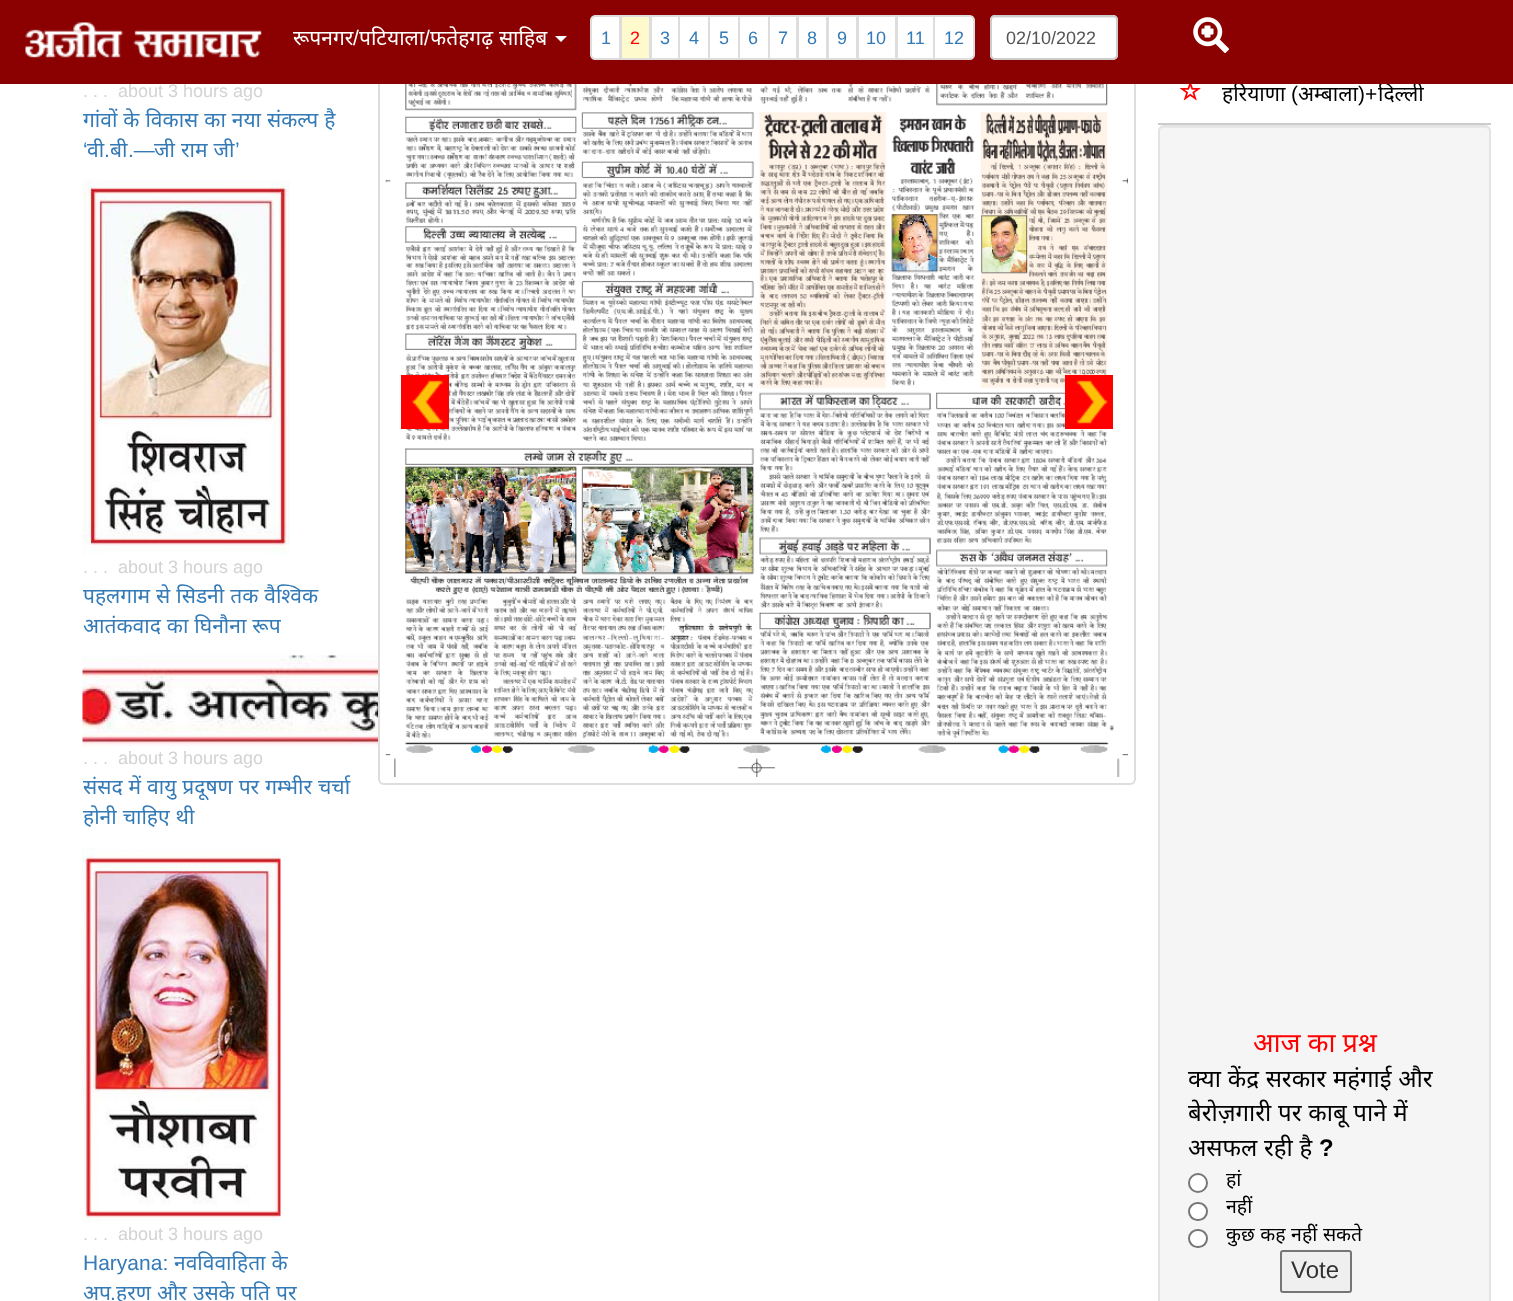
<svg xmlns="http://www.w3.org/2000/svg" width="1513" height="1301">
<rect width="100%" height="100%" fill="#fff"/>
<text x="83" y="97" style="font-family:Liberation Sans;font-size:18px;fill:#d3d3d3" xml:space="preserve">. . .  about 3 hours ago</text>
<rect x="379" y="-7" width="756" height="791" rx="5" fill="none" stroke="#ddd" stroke-width="2"/>
<text x="1222" y="101" style="font-family:Noto Sans;font-size:21px;fill:#000">हरियाणा</text>
<text x="1378" y="101" style="font-family:Noto Sans;font-size:21px;fill:#000">दिल्ली</text>
<rect width="1513" height="84" fill="#8b0000"/>
<image x="25" y="22" width="237" height="36" href="media/1.png"/>
<text x="293" y="45" style="font-family:Noto Sans;font-size:21px;fill:#fff">रूपनगर</text>
<text x="353" y="45" style="font-family:Liberation Sans;font-size:21px;fill:#fff">/</text>
<text x="359" y="45" style="font-family:Noto Sans;font-size:21px;fill:#fff">पटियाला</text>
<text x="424" y="45" style="font-family:Liberation Sans;font-size:21px;fill:#fff">/</text>
<text x="430" y="45" word-spacing="0.5" style="font-family:Noto Sans;font-size:21px;fill:#fff">फतेहगढ़ साहिब</text>
<path d="M555 36h12l-6 6z" fill="#fff"/>
<path d="M595 16h25v43h-25c-2 0-4-2-4-4v-35c0-2 2-4 4-4z" fill="#fff" stroke="#ddd" stroke-width="2"/>
<text x="601" y="44" style="font-family:Liberation Sans;font-size:18px;fill:#337ab7">1</text>
<rect x="621" y="16" width="29" height="43" fill="#fffacd" stroke="#ddd" stroke-width="2"/>
<text x="630" y="44" style="font-family:Liberation Sans;font-size:18px;fill:#f00">2</text>
<rect x="651" y="16" width="28" height="43" fill="#fff" stroke="#ddd" stroke-width="2"/>
<text x="660" y="44" style="font-family:Liberation Sans;font-size:18px;fill:#337ab7">3</text>
<rect x="679" y="16" width="30" height="43" fill="#fff" stroke="#ddd" stroke-width="2"/>
<text x="689" y="44" style="font-family:Liberation Sans;font-size:18px;fill:#337ab7">4</text>
<rect x="709" y="16" width="30" height="43" fill="#fff" stroke="#ddd" stroke-width="2"/>
<text x="719" y="44" style="font-family:Liberation Sans;font-size:18px;fill:#337ab7">5</text>
<rect x="739" y="16" width="30" height="43" fill="#fff" stroke="#ddd" stroke-width="2"/>
<text x="748" y="44" style="font-family:Liberation Sans;font-size:18px;fill:#337ab7">6</text>
<rect x="769" y="16" width="28" height="43" fill="#fff" stroke="#ddd" stroke-width="2"/>
<text x="778" y="44" style="font-family:Liberation Sans;font-size:18px;fill:#337ab7">7</text>
<rect x="798" y="16" width="29" height="43" fill="#fff" stroke="#ddd" stroke-width="2"/>
<text x="807" y="44" style="font-family:Liberation Sans;font-size:18px;fill:#337ab7">8</text>
<rect x="828" y="16" width="29" height="43" fill="#fff" stroke="#ddd" stroke-width="2"/>
<text x="837" y="44" style="font-family:Liberation Sans;font-size:18px;fill:#337ab7">9</text>
<rect x="858" y="16" width="38" height="43" fill="#fff" stroke="#ddd" stroke-width="2"/>
<text x="866" y="44" style="font-family:Liberation Sans;font-size:18px;fill:#337ab7">10</text>
<rect x="897" y="16" width="37" height="43" fill="#fff" stroke="#ddd" stroke-width="2"/>
<text x="906" y="44" style="font-family:Liberation Sans;font-size:18px;fill:#337ab7">11</text>
<path d="M934 16h36c2 0 4 2 4 4v35c0 2-2 4-4 4h-36z" fill="#fff" stroke="#ddd" stroke-width="2"/>
<text x="944" y="44" style="font-family:Liberation Sans;font-size:18px;fill:#337ab7">12</text>
<rect x="990" y="15" width="128" height="45" rx="5" fill="#fff"/>
<path d="M994 18h119c2 0 3 1 3 3c0-2-1-4-3-4h-98c-1 0-23-5-23 4c0-2 1-3 2-3z" fill="#ececec"/>
<rect x="991" y="16" width="126" height="43" rx="4" fill="none" stroke="#ccc" stroke-width="2"/>
<text x="1006" y="44" style="font-family:Liberation Sans;font-size:18px;fill:#555">02/10/2022</text>
<image x="1193" y="17" width="37" height="37" href="media/2.png"/>
<text x="83" y="127" word-spacing="0.5" style="font-family:Noto Sans;font-size:21px;fill:#337ab7">गांवों के विकास का नया संकल्प है</text>
<text x="83" y="157" style="font-family:Liberation Sans;font-size:21px;fill:#337ab7">‘</text>
<text x="87" y="157" style="font-family:Noto Sans;font-size:21px;fill:#337ab7">वी</text>
<text x="104" y="157" style="font-family:Liberation Sans;font-size:21px;fill:#337ab7">.</text>
<text x="110" y="157" style="font-family:Noto Sans;font-size:21px;fill:#337ab7">बी</text>
<text x="128" y="157" style="font-family:Liberation Sans;font-size:21px;fill:#337ab7">.—</text>
<text x="154" y="157" word-spacing="0.5" style="font-family:Noto Sans;font-size:21px;fill:#337ab7">जी राम जी</text>
<text x="235" y="157" style="font-family:Liberation Sans;font-size:21px;fill:#337ab7">’</text>
<image x="82" y="180" width="208" height="375" href="media/3.png"/>
<text x="83" y="573" style="font-family:Liberation Sans;font-size:18px;fill:#d3d3d3" xml:space="preserve">. . .  about 3 hours ago</text>
<text x="83" y="603" word-spacing="0.5" style="font-family:Noto Sans;font-size:21px;fill:#337ab7">पहलगाम से सिडनी तक वैश्विक</text>
<text x="83" y="633" word-spacing="0.5" style="font-family:Noto Sans;font-size:21px;fill:#337ab7">आतंकवाद का घिनौना रूप</text>
<image x="82" y="655" width="296" height="92" href="media/4.png"/>
<text x="83" y="764" style="font-family:Liberation Sans;font-size:18px;fill:#d3d3d3" xml:space="preserve">. . .  about 3 hours ago</text>
<text x="83" y="794" word-spacing="0.5" style="font-family:Noto Sans;font-size:21px;fill:#337ab7">संसद में वायु प्रदूषण पर गम्भीर चर्चा</text>
<text x="83" y="824" word-spacing="0.5" style="font-family:Noto Sans;font-size:21px;fill:#337ab7">होनी चाहिए थी</text>
<image x="82" y="847" width="199" height="376" href="media/5.png"/>
<text x="83" y="1240" style="font-family:Liberation Sans;font-size:18px;fill:#d3d3d3" xml:space="preserve">. . .  about 3 hours ago</text>
<text x="83" y="1270" style="font-family:Liberation Sans;font-size:21px;fill:#337ab7">Haryana:</text>
<text x="174" y="1270" word-spacing="0.5" style="font-family:Noto Sans;font-size:21px;fill:#337ab7">नवविवाहिता के</text>
<text x="83" y="1300" style="font-family:Noto Sans;font-size:21px;fill:#337ab7">अप</text>
<text x="110" y="1300" style="font-family:Liberation Sans;font-size:21px;fill:#337ab7">.</text>
<text x="116" y="1300" word-spacing="0.5" style="font-family:Noto Sans;font-size:21px;fill:#337ab7">हरण और उसके पति पर</text>
<image x="385" y="84" width="743" height="693" href="media/6.png"/>
<rect x="401" y="375" width="48" height="54" fill="#f00"/>
<image x="412" y="380" width="31" height="44" href="media/7.png"/>
<rect x="1065" y="375" width="48" height="54" fill="#f00"/>
<image x="1076" y="380" width="32" height="44" href="media/8.png"/>
<rect x="1158" y="123" width="333" height="2" fill="#ccc"/>
<image x="1179" y="84" width="22" height="17" href="media/9.png"/>
<text x="1291" y="101" style="font-family:Liberation Sans;font-size:21px;fill:#000">(</text>
<text x="1298" y="101" style="font-family:Noto Sans;font-size:21px;fill:#000">अम्बाला</text>
<text x="1358" y="101" style="font-family:Liberation Sans;font-size:21px;fill:#000">)+</text>
<rect x="1158" y="125" width="333" height="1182" rx="6" fill="#f5f5f5"/>
<path d="M1164 128h321c2 0 5 2 5 4c0-3-2-6-5-6h-320c-3 0-5 3-5 6c0-2 2-4 4-4z" fill="#e9e9e9"/>
<rect x="1159" y="126" width="331" height="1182" rx="5" fill="none" stroke="#e3e3e3" stroke-width="2"/>
<text x="1253" y="1052" style="font-family:Noto Sans;font-size:27px;fill:#f00">आज का प्रश्न</text>
<text x="1188" y="1087" word-spacing="0.5" style="font-family:Noto Sans;font-size:24px;fill:#000">क्या केंद्र सरकार महंगाई और</text>
<text x="1188" y="1121" word-spacing="0.5" style="font-family:Noto Sans;font-size:24px;fill:#000">बेरोज़गारी पर काबू पाने में</text>
<text x="1188" y="1156" style="font-family:Noto Sans;font-size:24px;fill:#000">असफल</text>
<text x="1264" y="1156" word-spacing="0.5" style="font-family:Noto Sans;font-size:24px;fill:#000">रही है</text>
<text x="1319" y="1156" style="font-family:Liberation Sans;font-size:24px;font-weight:bold;fill:#000">?</text>
<circle cx="1198" cy="1183" r="9" fill="#fff" stroke="#767676" stroke-width="2"/>
<text x="1226" y="1186" style="font-family:Noto Sans;font-size:19.5px;fill:#000">हां</text>
<rect x="1189" y="1203" width="18" height="17" rx="8.5" fill="#fff" stroke="#767676" stroke-width="2"/>
<text x="1226" y="1213" style="font-family:Noto Sans;font-size:19.5px;fill:#000">नहीं</text>
<rect x="1189" y="1230" width="18" height="17" rx="8.5" fill="#fff" stroke="#767676" stroke-width="2"/>
<text x="1226" y="1241" word-spacing="0.5" style="font-family:Noto Sans;font-size:19.5px;fill:#000">कुछ कह नहीं सकते</text>
<rect x="1281" y="1251" width="70" height="41" rx="2" fill="#efefef" stroke="#767676" stroke-width="2"/>
<text x="1291" y="1278" style="font-family:Liberation Sans;font-size:24px;fill:#333">Vote</text>
</svg>
